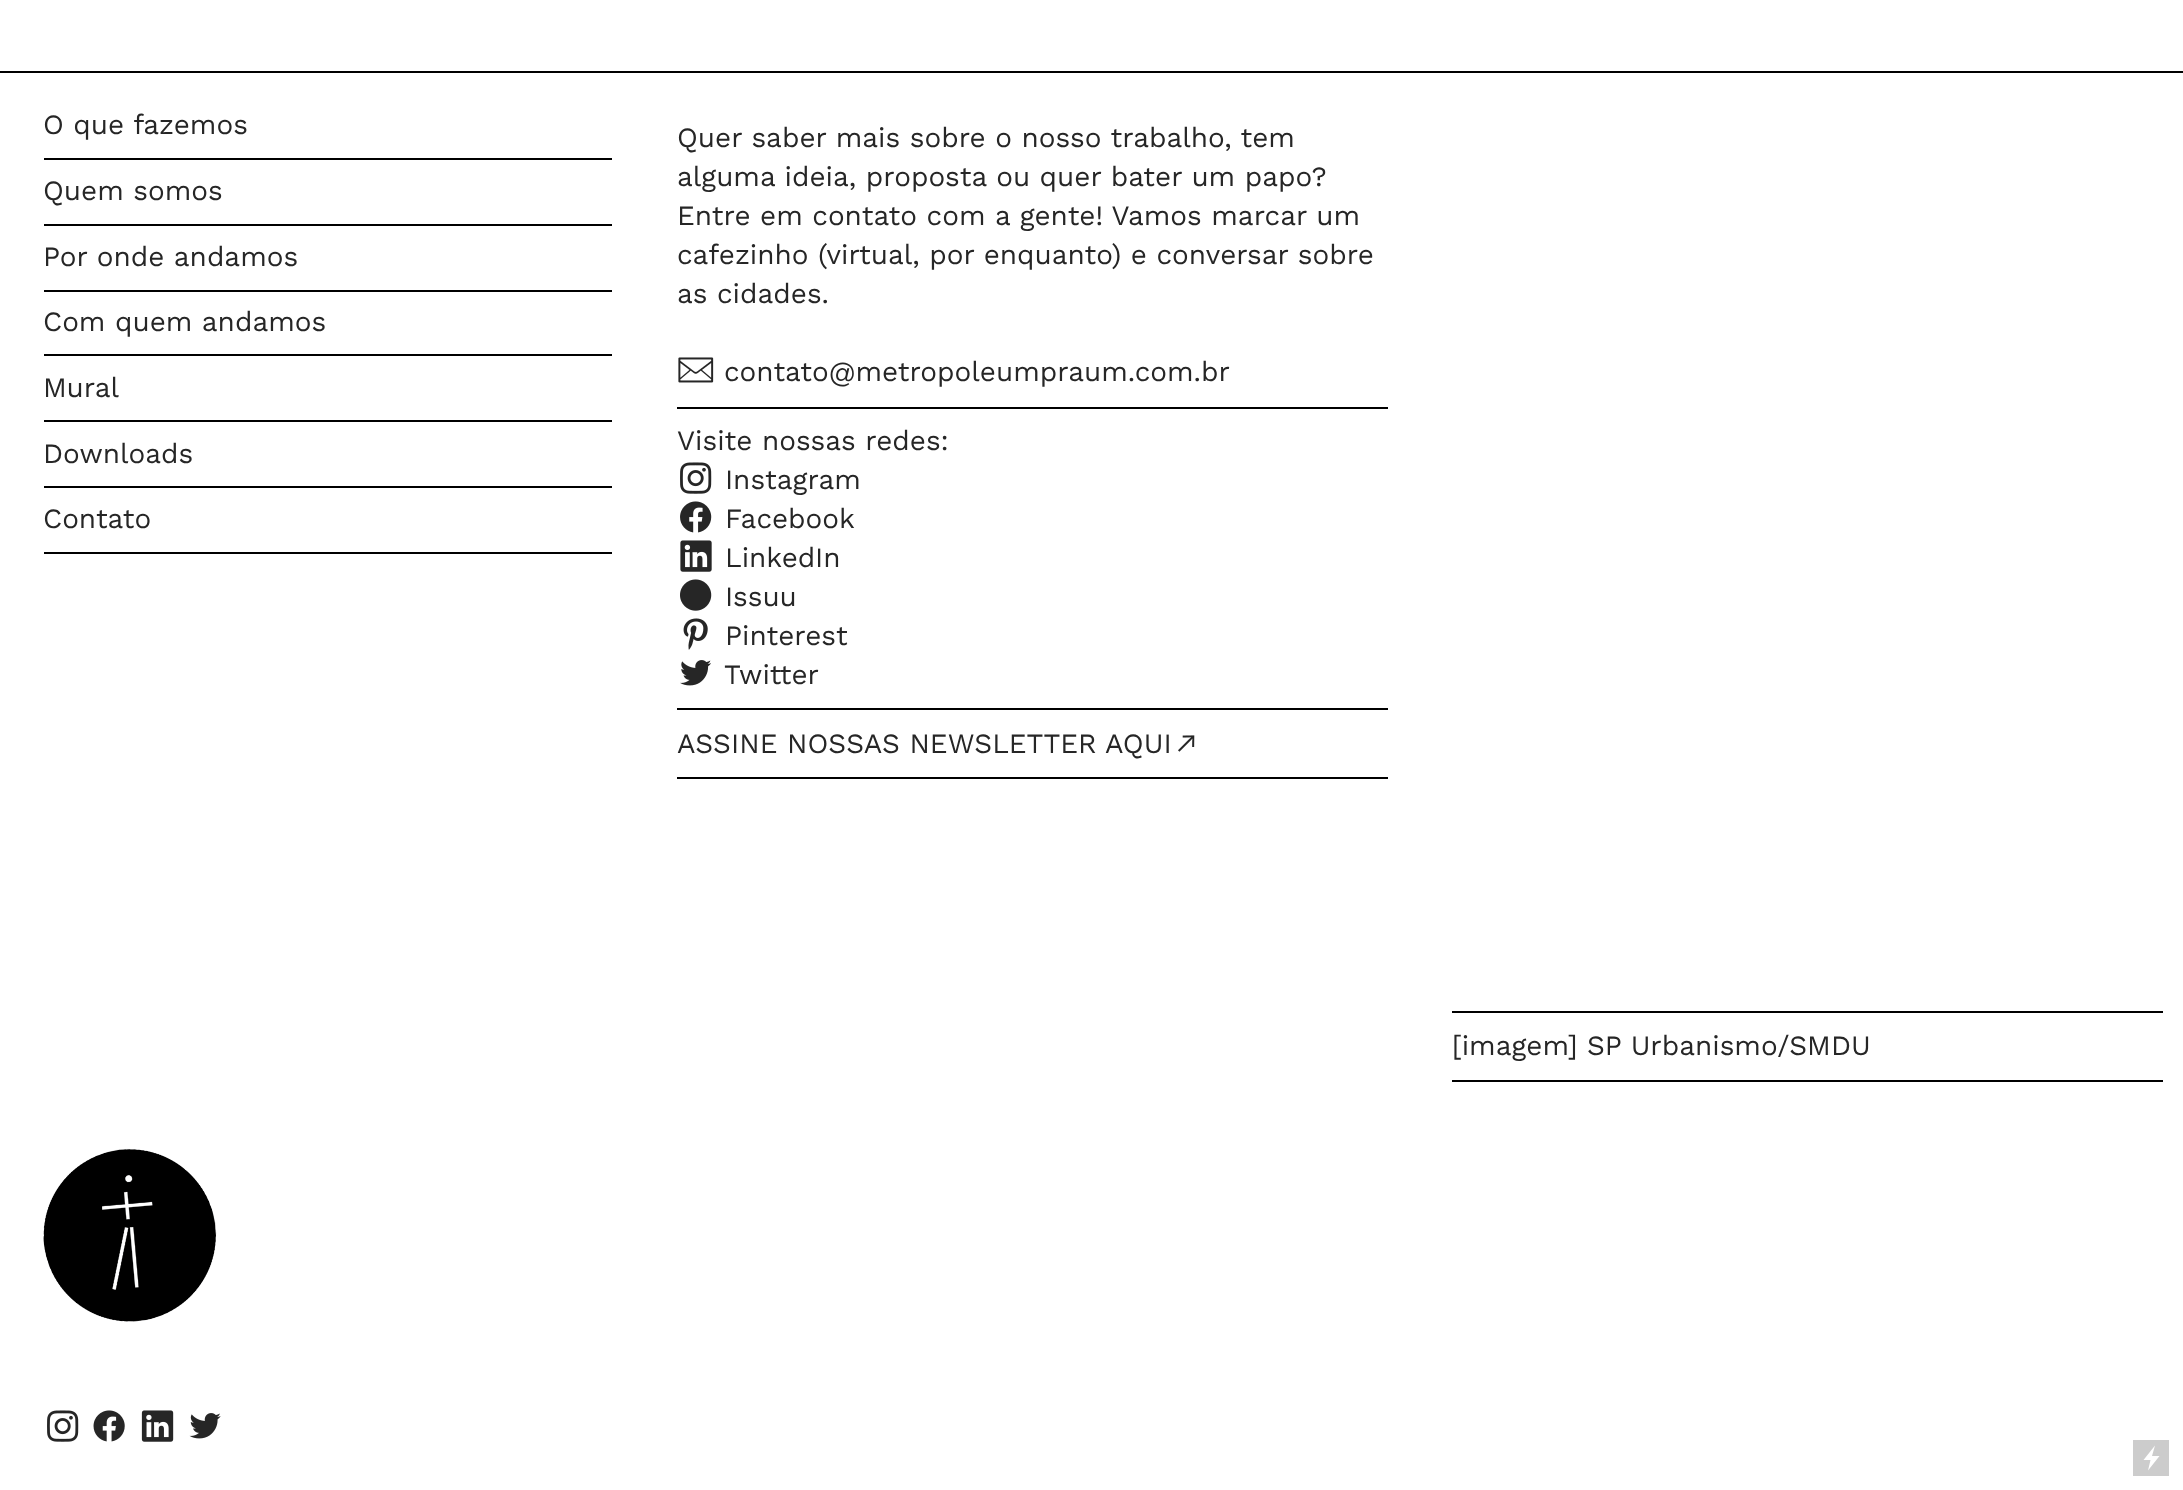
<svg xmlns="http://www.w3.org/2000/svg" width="2183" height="1490">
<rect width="100%" height="100%" fill="#fff"/>
<rect y="71" width="2183" height="2" fill="#000"/>
<text x="43" y="134" style="font-family:Work Sans;font-size:27.9px;fill:#262626">O que fazemos</text>
<rect x="44" y="158" width="568" height="2" fill="#000"/>
<text x="43" y="200" style="font-family:Work Sans;font-size:27.9px;fill:#262626">Quem somos</text>
<rect x="44" y="224" width="568" height="2" fill="#000"/>
<text x="43" y="266" style="font-family:Work Sans;font-size:27.9px;fill:#262626">Por onde andamos</text>
<rect x="44" y="290" width="568" height="2" fill="#000"/>
<text x="43" y="331" style="font-family:Work Sans;font-size:27.9px;fill:#262626">Com quem andamos</text>
<rect x="44" y="354" width="568" height="2" fill="#000"/>
<text x="43" y="397" style="font-family:Work Sans;font-size:27.9px;fill:#262626">Mural</text>
<rect x="44" y="420" width="568" height="2" fill="#000"/>
<text x="43" y="463" style="font-family:Work Sans;font-size:27.9px;fill:#262626">Downloads</text>
<rect x="44" y="486" width="568" height="2" fill="#000"/>
<text x="43" y="528" style="font-family:Work Sans;font-size:27.9px;fill:#262626">Contato</text>
<rect x="44" y="552" width="568" height="2" fill="#000"/>
<image x="43" y="1148" width="174" height="174" href="media/1.png"/>
<image x="47" y="1410" width="32" height="32" href="media/2.png"/>
<image x="93" y="1410" width="32" height="32" href="media/3.png"/>
<image x="141" y="1410" width="33" height="32" href="media/4.png"/>
<image x="189" y="1413" width="32" height="26" href="media/5.png"/>
<text x="677" y="147" style="font-family:Work Sans;font-size:27.9px;fill:#262626">Quer saber mais sobre o nosso trabalho, tem</text>
<text x="677" y="186" style="font-family:Work Sans;font-size:27.9px;fill:#262626">alguma ideia, proposta ou quer bater um papo?</text>
<text x="677" y="225" style="font-family:Work Sans;font-size:27.9px;fill:#262626">Entre em contato com a gente! Vamos marcar um</text>
<text x="677" y="264" style="font-family:Work Sans;font-size:27.9px;fill:#262626">cafezinho (virtual, por enquanto) e conversar sobre</text>
<text x="677" y="303" style="font-family:Work Sans;font-size:27.9px;fill:#262626">as cidades.</text>
<image x="678" y="357" width="36" height="26" href="media/6.png"/>
<text x="724" y="381" style="font-family:Work Sans;font-size:27.9px;fill:#262626">contato@metropoleumpraum.com.br</text>
<rect x="677" y="407" width="711" height="2" fill="#000"/>
<text x="677" y="450" style="font-family:Work Sans;font-size:27.9px;fill:#262626">Visite nossas redes:</text>
<image x="680" y="462" width="32" height="32" href="media/2.png"/>
<text x="725" y="489" style="font-family:Work Sans;font-size:27.9px;fill:#262626">Instagram</text>
<image x="680" y="501" width="32" height="32" href="media/7.png"/>
<text x="725" y="528" style="font-family:Work Sans;font-size:27.9px;fill:#262626">Facebook</text>
<image x="680" y="540" width="32" height="32" href="media/8.png"/>
<text x="725" y="567" style="font-family:Work Sans;font-size:27.9px;fill:#262626">LinkedIn</text>
<image x="680" y="579" width="32" height="32" href="media/9.png"/>
<text x="725" y="606" style="font-family:Work Sans;font-size:27.9px;fill:#262626">Issuu</text>
<image x="683" y="618" width="25" height="32" href="media/10.png"/>
<text x="725" y="645" style="font-family:Work Sans;font-size:27.9px;fill:#262626">Pinterest</text>
<image x="680" y="660" width="31" height="26" href="media/11.png"/>
<text x="724" y="684" style="font-family:Work Sans;font-size:27.9px;fill:#262626">Twitter</text>
<rect x="677" y="708" width="711" height="2" fill="#000"/>
<text x="677" y="753" style="font-family:Work Sans;font-size:27.9px;fill:#262626">ASSINE NOSSAS NEWSLETTER AQUI</text>
<image x="1178" y="735" width="17" height="17" href="media/12.png"/>
<rect x="677" y="777" width="711" height="2" fill="#000"/>
<rect x="1452" y="1011" width="711" height="2" fill="#000"/>
<text x="1452" y="1055" style="font-family:Work Sans;font-size:27.9px;fill:#262626">[imagem] SP Urbanismo/SMDU</text>
<rect x="1452" y="1080" width="711" height="2" fill="#000"/>
<rect x="2133" y="1440" width="36" height="36" fill="#ccc"/>
<path d="M2159.5 1456h-7.5l3-10.5l-11.5 14.5h7l-2.5 10.5z" fill="#fff"/>
</svg>
